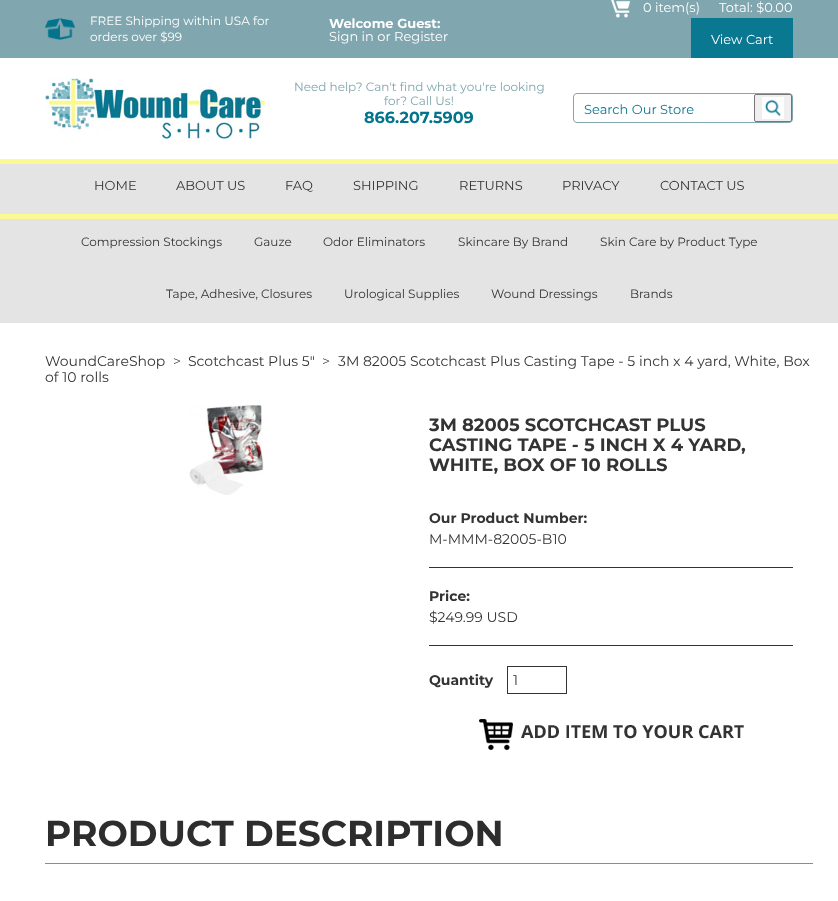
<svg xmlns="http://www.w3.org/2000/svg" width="838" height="901">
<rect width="100%" height="100%" fill="#fff"/>
<rect width="838" height="58" fill="#80a6af"/>
<image x="45" y="18" width="30" height="22" href="media/1.png"/>
<text x="90" y="25" style="font-family:Montserrat;font-size:12px;fill:#fff">FREE Shipping within USA for</text>
<text x="90" y="41" style="font-family:Montserrat;font-size:12px;fill:#fff">orders over $99</text>
<text x="329" y="28" style="font-family:Montserrat;font-size:13px;font-weight:bold;fill:#fff">Welcome Guest:</text>
<text x="329" y="41" style="font-family:Montserrat;font-size:13px;fill:#fff">Sign in or Register</text>
<image x="611" y="0" width="19" height="18" href="media/2.png"/>
<text x="643" y="12" style="font-family:Montserrat;font-size:13px;fill:#fff">0 item(s)</text>
<text x="719" y="12" style="font-family:Montserrat;font-size:13px;fill:#fff">Total: $0.00</text>
<rect x="691" y="18" width="102" height="40" fill="#0a7891"/>
<text x="711" y="44" style="font-family:Montserrat;font-size:13px;fill:#fff">View Cart</text>
<image x="45" y="78" width="220" height="61" href="media/3.png"/>
<text x="294" y="91" style="font-family:Montserrat;font-size:12px;fill:#80a6af">Need help? Can't find what you're looking</text>
<text x="384" y="105" style="font-family:Montserrat;font-size:12px;fill:#80a6af">for? Call Us!</text>
<text x="364" y="123" style="font-family:Montserrat;font-size:16px;font-weight:bold;fill:#04748d">866.207.5909</text>
<rect x="573.5" y="93.5" width="219" height="29" rx="3.5" fill="none" stroke="#80a6af"/>
<text x="584" y="114" style="font-family:Montserrat;font-size:13px;fill:#0a7891">Search Our Store</text>
<rect x="754.5" y="94.5" width="37" height="27" rx="1.5" fill="#efefef" stroke="#767676"/>
<image x="762" y="97" width="22" height="22" href="media/4.png"/>
<rect y="164" width="838" height="50" fill="#e4e4e4"/>
<rect y="159" width="838" height="5" fill="#fbf992"/>
<text x="94" y="190" style="font-family:Montserrat;font-size:13px;fill:#333">HOME</text>
<text x="176" y="190" style="font-family:Montserrat;font-size:13px;fill:#333">ABOUT US</text>
<text x="285" y="190" style="font-family:Montserrat;font-size:13px;fill:#333">FAQ</text>
<text x="353" y="190" style="font-family:Montserrat;font-size:13px;fill:#333">SHIPPING</text>
<text x="459" y="190" style="font-family:Montserrat;font-size:13px;fill:#333">RETURNS</text>
<text x="562" y="190" style="font-family:Montserrat;font-size:13px;fill:#333">PRIVACY</text>
<text x="660" y="190" style="font-family:Montserrat;font-size:13px;fill:#333">CONTACT US</text>
<rect y="219" width="838" height="104" fill="#e4e4e4"/>
<rect y="214" width="838" height="5" fill="#fbf992"/>
<text x="81" y="246" style="font-family:Montserrat;font-size:12px;fill:#333">Compression Stockings</text>
<text x="254" y="246" style="font-family:Montserrat;font-size:12px;fill:#333">Gauze</text>
<text x="323" y="246" style="font-family:Montserrat;font-size:12px;fill:#333">Odor Eliminators</text>
<text x="458" y="246" style="font-family:Montserrat;font-size:12px;fill:#333">Skincare By Brand</text>
<text x="600" y="246" style="font-family:Montserrat;font-size:12px;fill:#333">Skin Care by Product Type</text>
<text x="166" y="298" style="font-family:Montserrat;font-size:12px;fill:#333">Tape, Adhesive, Closures</text>
<text x="344" y="298" style="font-family:Montserrat;font-size:12px;fill:#333">Urological Supplies</text>
<text x="491" y="298" style="font-family:Montserrat;font-size:12px;fill:#333">Wound Dressings</text>
<text x="630" y="298" style="font-family:Montserrat;font-size:12px;fill:#333">Brands</text>
<text x="45" y="366" style="font-family:Montserrat;font-size:14px;fill:#333">WoundCareShop</text>
<text x="173" y="366" style="font-family:Montserrat;font-size:14px;fill:#333">&gt;</text>
<text x="188" y="366" style="font-family:Montserrat;font-size:14px;fill:#333">Scotchcast Plus 5"</text>
<text x="322" y="366" style="font-family:Montserrat;font-size:14px;fill:#333">&gt;</text>
<text x="338" y="366" style="font-family:Montserrat;font-size:14px;fill:#333">3M 82005 Scotchcast Plus Casting Tape - 5 inch x 4 yard, White, Box</text>
<text x="45" y="382" style="font-family:Montserrat;font-size:14px;fill:#333">of 10 rolls</text>
<image x="189" y="405" width="75" height="90" href="media/5.png"/>
<text x="429" y="431" style="font-family:Montserrat;font-size:18px;font-weight:bold;fill:#333">3M 82005 SCOTCHCAST PLUS</text>
<text x="429" y="451" style="font-family:Montserrat;font-size:18px;font-weight:bold;fill:#333">CASTING TAPE - 5 INCH X 4 YARD,</text>
<text x="429" y="471" style="font-family:Montserrat;font-size:18px;font-weight:bold;fill:#333">WHITE, BOX OF 10 ROLLS</text>
<rect x="429" y="567" width="364" height="1" fill="#333"/>
<text x="429" y="523" style="font-family:Montserrat;font-size:14px;font-weight:bold;fill:#333">Our Product Number:</text>
<text x="429" y="544" style="font-family:Montserrat;font-size:14px;fill:#333">M-MMM-82005-B10</text>
<rect x="429" y="645" width="364" height="1" fill="#333"/>
<text x="429" y="601" style="font-family:Montserrat;font-size:14px;font-weight:bold;fill:#333">Price:</text>
<text x="429" y="622" style="font-family:Montserrat;font-size:14px;fill:#333">$249.99 USD</text>
<text x="429" y="685" style="font-family:Montserrat;font-size:14px;font-weight:bold;fill:#333">Quantity</text>
<rect x="507.5" y="666.5" width="59" height="27" fill="none" stroke="#333"/>
<text x="513" y="685" style="font-family:Montserrat;font-size:14px;fill:#333">1</text>
<image x="479" y="719" width="265" height="31" href="media/6.png"/>
<rect x="45" y="863" width="768" height="1" fill="#8c8c8c"/>
<text x="45" y="846" style="font-family:Montserrat;font-size:36px;font-weight:bold;fill:#2d2d2d">PRODUCT DESCRIPTION</text>
</svg>
